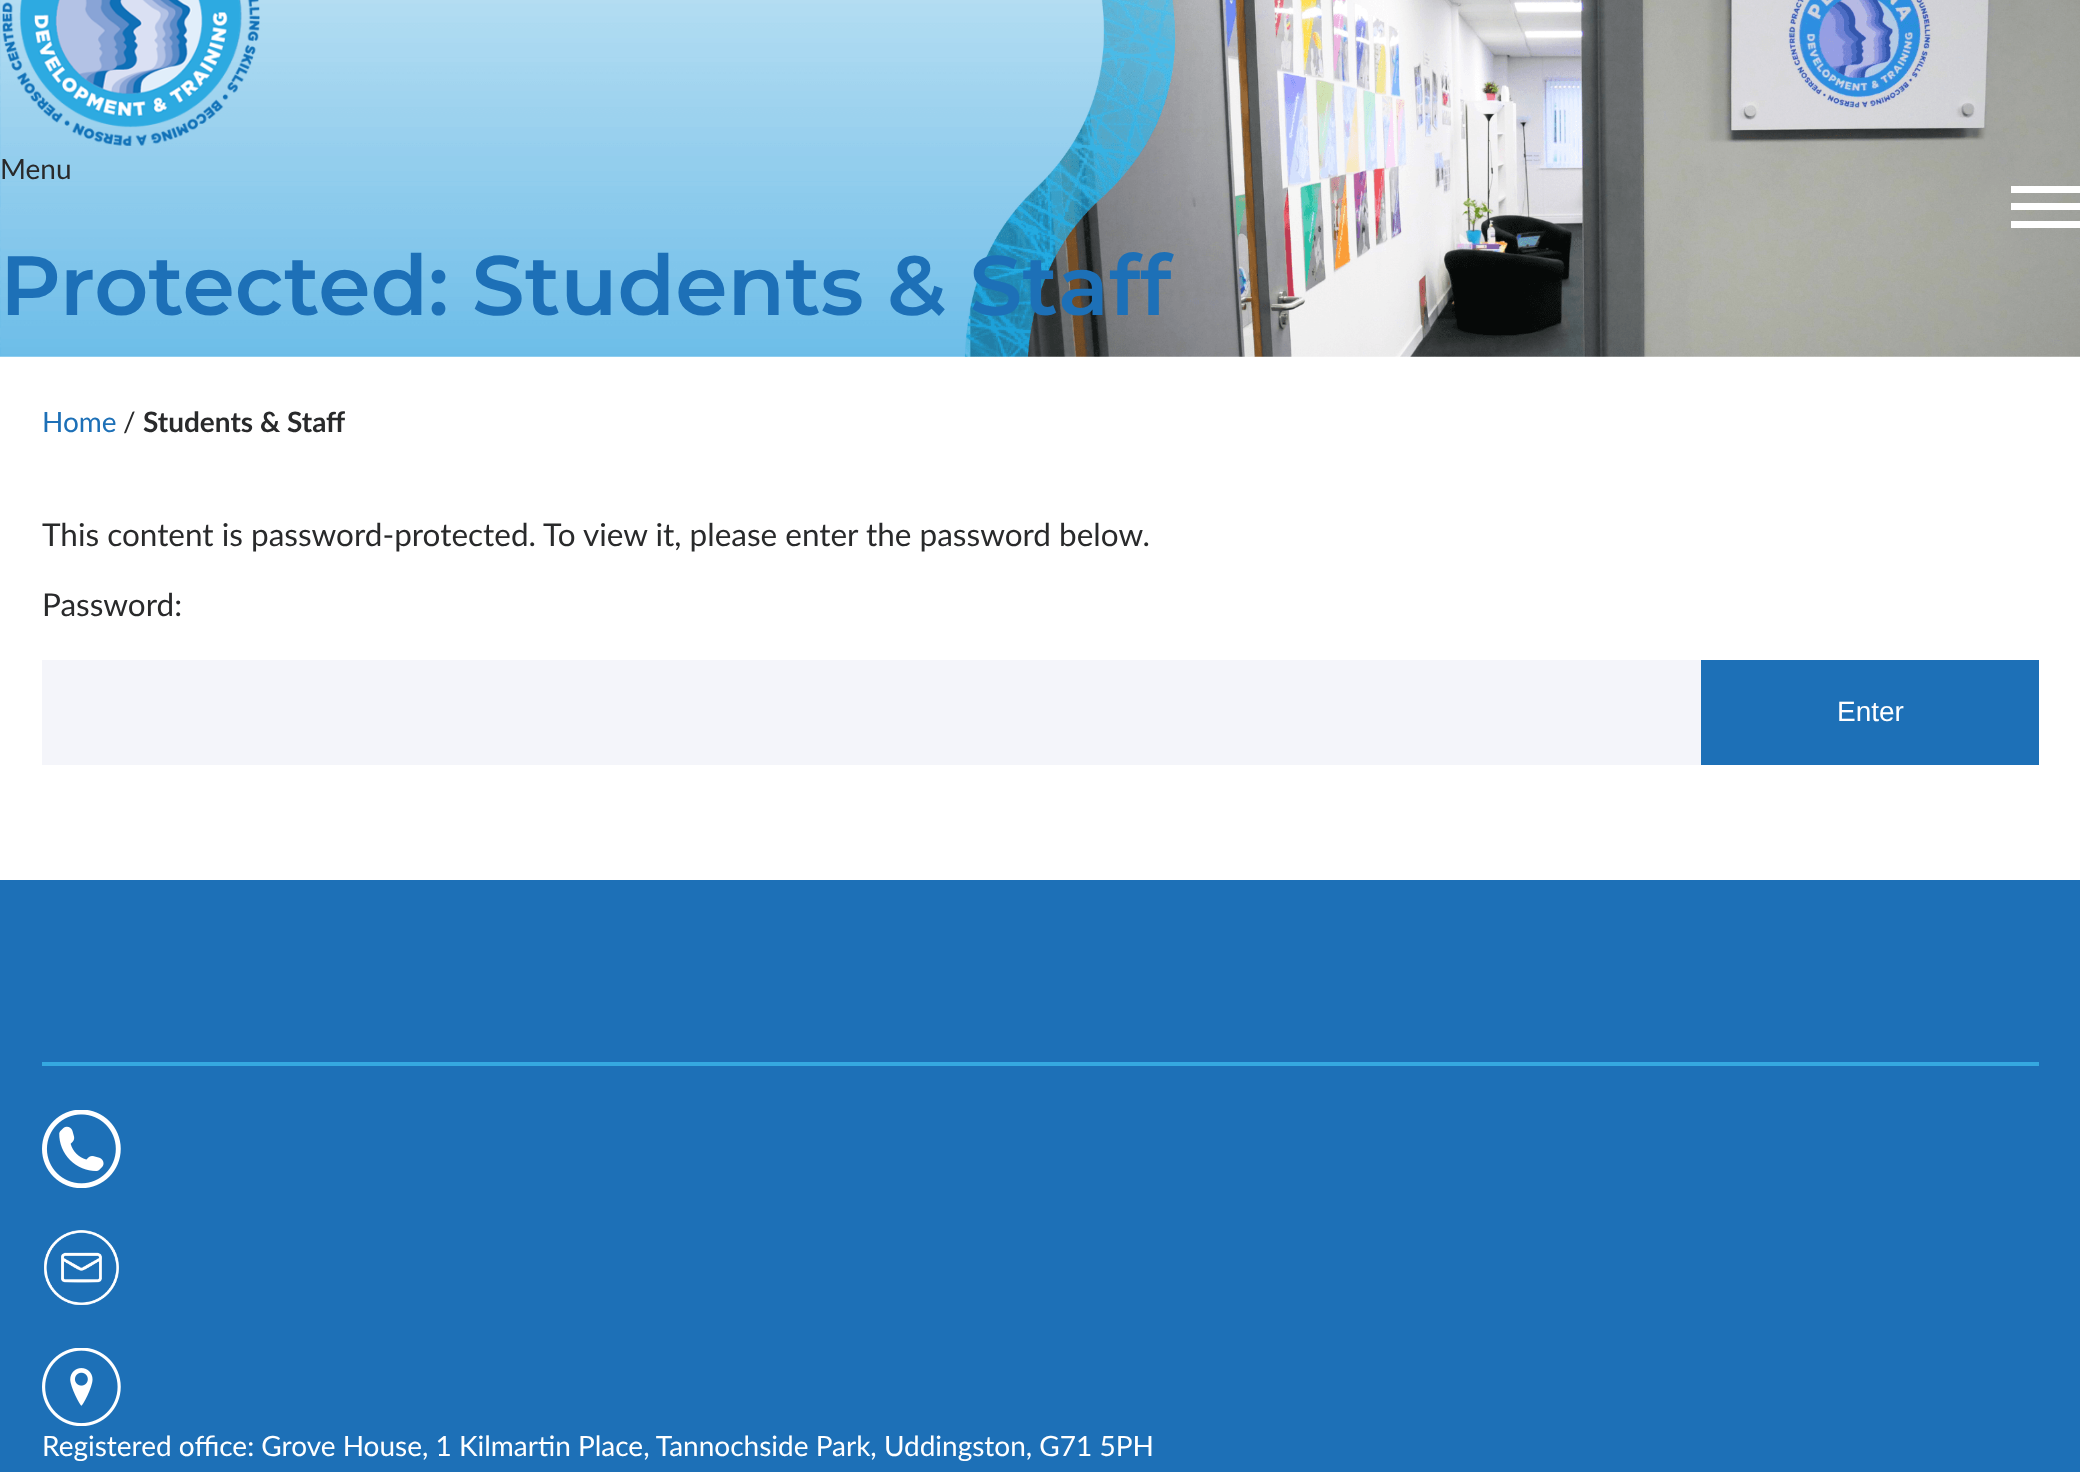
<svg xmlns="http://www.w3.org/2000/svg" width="2080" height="1472">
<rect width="100%" height="100%" fill="#fff"/>
<image x="0" y="0" width="2080" height="357" href="media/1.png"/>
<image x="2" y="0" width="258" height="146" href="media/2.png"/>
<text x="0" y="179" style="font-family:Lato;font-size:28px;fill:#292a2b">Menu</text>
<rect x="2011" y="186" width="69" height="7" fill="#fff"/>
<rect x="2011" y="203" width="69" height="7" fill="#fff"/>
<rect x="2011" y="221" width="69" height="7" fill="#fff"/>
<text x="0" y="315" style="font-family:Montserrat;font-size:84px;font-weight:600;fill:#1d70b7">Protected: Students &amp; Staff</text>
<text x="42" y="432" style="font-family:Lato;font-size:28px;fill:#1d70b7">Home</text>
<text x="123" y="432" style="font-family:Lato;font-size:28px;fill:#292a2b">/</text>
<text x="143" y="432" style="font-family:Lato;font-size:28px;font-weight:bold;fill:#292a2b">Students &amp; Staff</text>
<text x="42" y="546" style="font-family:Lato;font-size:31.5px;fill:#292a2b">This content is password-protected. To view it, please enter the password below.</text>
<text x="42" y="616" style="font-family:Lato;font-size:31.5px;fill:#292a2b">Password:</text>
<rect x="42" y="660" width="1659" height="105" fill="#f4f5fa"/>
<rect x="1701" y="660" width="338" height="105" fill="#1d70b7"/>
<text x="1837" y="721" style="font-family:Liberation Sans;font-size:28px;fill:#fff">Enter</text>
<rect y="880" width="2080" height="592" fill="#1d70b7"/>
<rect x="42" y="1062" width="1997" height="4" fill="#35a8e0"/>
<image x="42" y="1110" width="79" height="78" href="media/3.png"/>
<image x="44" y="1230" width="75" height="75" href="media/4.png"/>
<image x="42" y="1348" width="79" height="78" href="media/5.png"/>
<text x="42" y="1456" style="font-family:Lato;font-size:28px;fill:#fff">Registered office: Grove House, 1 Kilmartin Place, Tannochside Park, Uddingston, G71 5PH</text>
</svg>
